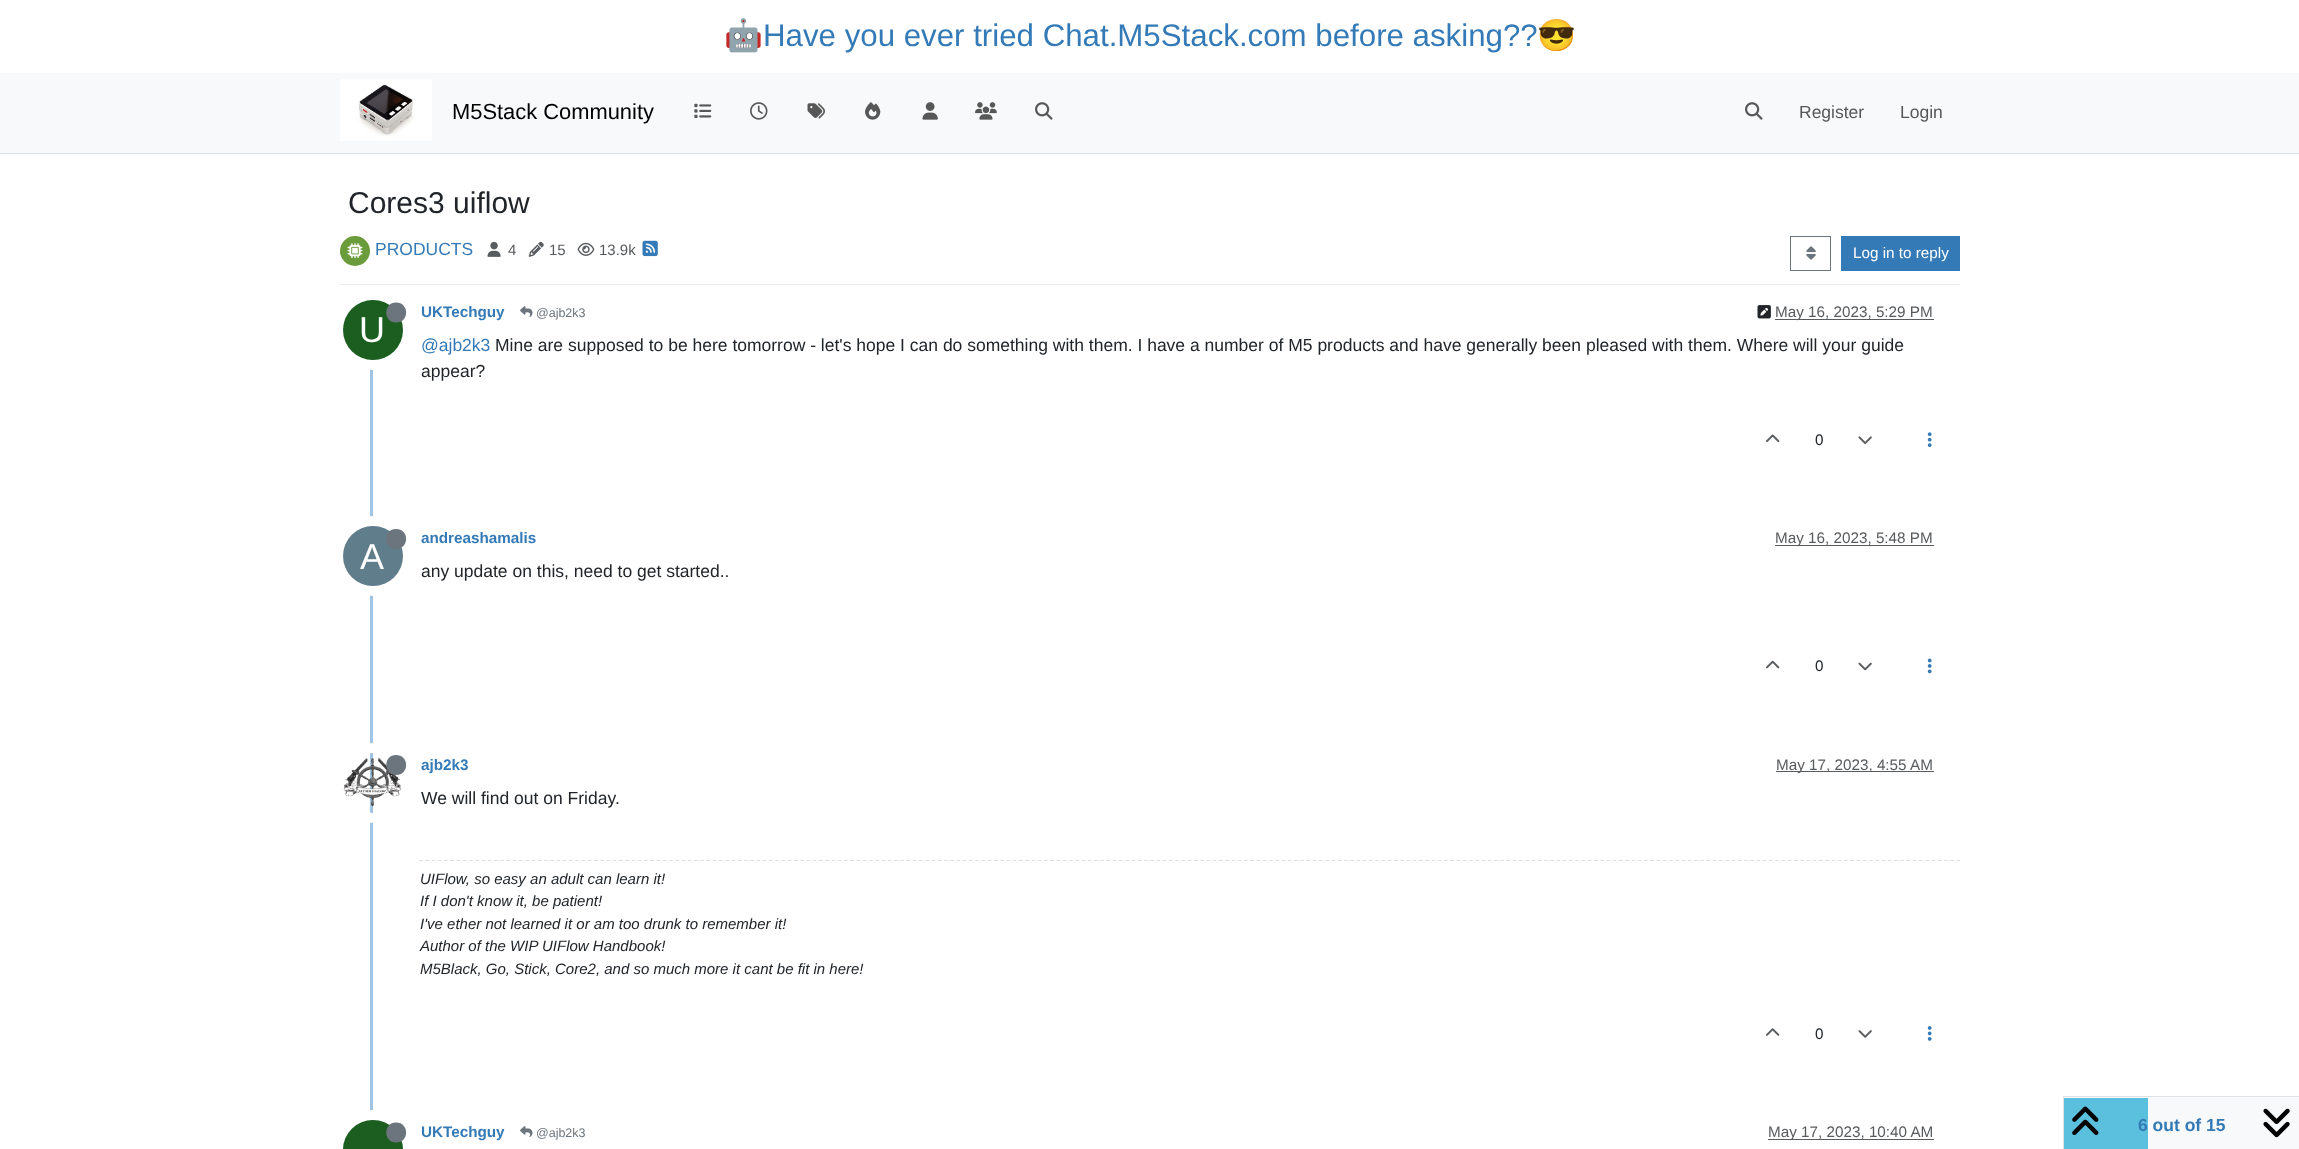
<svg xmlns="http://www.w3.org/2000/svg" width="2299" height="1149">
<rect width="100%" height="100%" fill="#fff"/>
<text x="724" y="46" style="font-family:Noto Color Emoji;font-size:31.25px;fill:#337ab7">🤖</text>
<text x="763" y="46" style="font-family:Liberation Sans;font-size:31.25px;fill:#337ab7">Have you ever tried Chat.M5Stack.com before asking??</text>
<text x="1537" y="46" style="font-family:Noto Color Emoji;font-size:31.25px;fill:#337ab7">😎</text>
<rect y="73" width="2299" height="80" fill="#f8f9fa"/>
<rect y="153" width="2299" height="1" fill="#dee2e6"/>
<image x="340" y="79" width="92" height="62" href="media/1.png"/>
<text x="452" y="119" style="font-family:Liberation Sans;font-size:21.9px;fill:#000">M5Stack Community</text>
<image x="694" y="103" width="18" height="16" href="media/2.png"/>
<image x="750" y="102" width="18" height="18" href="media/3.png"/>
<image x="807" y="103" width="18" height="16" href="media/4.png"/>
<image x="865" y="102" width="16" height="18" href="media/5.png"/>
<image x="922" y="102" width="16" height="18" href="media/6.png"/>
<image x="975" y="102" width="22" height="18" href="media/7.png"/>
<image x="1035" y="102" width="18" height="18" href="media/8.png"/>
<image x="1745" y="102" width="18" height="18" href="media/8.png"/>
<text x="1799" y="118" style="font-family:Liberation Sans;font-size:17.5px;fill:#575758">Register</text>
<text x="1900" y="118" style="font-family:Liberation Sans;font-size:17.5px;fill:#575758">Login</text>
<text x="348" y="213" style="font-family:Liberation Sans;font-size:30px;fill:#212529">Cores3 uiflow</text>
<rect x="340" y="284" width="1620" height="1" fill="#e9ecef"/>
<circle cx="355" cy="251" r="15" fill="#6a9c3b"/>
<image x="347" y="243" width="16" height="16" href="media/9.png"/>
<text x="375" y="255" style="font-family:Liberation Sans;font-size:17.5px;fill:#337ab7">PRODUCTS</text>
<image x="487" y="241" width="14" height="16" href="media/10.png"/>
<text x="508" y="255" style="font-family:Liberation Sans;font-size:15px;fill:#585b5e">4</text>
<image x="528" y="241" width="16" height="16" href="media/11.png"/>
<text x="549" y="255" style="font-family:Liberation Sans;font-size:15px;fill:#585b5e">15</text>
<image x="577" y="242" width="18" height="14" href="media/12.png"/>
<text x="599" y="255" style="font-family:Liberation Sans;font-size:15px;fill:#585b5e">13.9k</text>
<image x="642" y="240" width="16" height="17" href="media/13.png"/>
<rect x="1790.5" y="236.5" width="40" height="34" fill="none" stroke="#6c757d"/>
<image x="1806" y="246" width="10" height="14" href="media/14.png"/>
<rect x="1841" y="236" width="119" height="35" fill="#337ab7"/>
<text x="1853" y="258" style="font-family:Liberation Sans;font-size:15.25px;fill:#fff">Log in to reply</text>
<rect x="370" y="298" width="3" height="823" fill="#a0c4e4"/>
<text x="421" y="317" style="font-family:Liberation Sans;font-size:15.25px;font-weight:bold;fill:#337ab7">UKTechguy</text>
<image x="520" y="306" width="13" height="11" href="media/15.png"/>
<text x="536" y="317" style="font-family:Liberation Sans;font-size:12.5px;fill:#6c757d">@ajb2k3</text>
<image x="1757" y="305" width="14" height="14" href="media/16.png"/>
<rect x="1775" y="319" width="159" height="1" fill="#595c5f"/>
<text x="1775" y="317" style="font-family:Liberation Sans;font-size:15.25px;fill:#585b5e">May 16, 2023, 5:29 PM</text>
<circle cx="373" cy="330" r="35" fill="none" stroke="#fff" stroke-width="10"/>
<circle cx="373" cy="330" r="30" fill="#1b5e20"/>
<path d="M396 322.5c13.5 0 13.5-20 0-20c-13 0-13 20 0 20z" fill="#6c757d"/>
<text x="359" y="342" style="font-family:Liberation Sans;font-size:36px;fill:#fff">U</text>
<text x="421" y="351" style="font-family:Liberation Sans;font-size:17.5px;fill:#337ab7">@ajb2k3</text>
<text x="495" y="351" style="font-family:Liberation Sans;font-size:17.5px;fill:#212529">Mine are supposed to be here tomorrow - let's hope I can do something with them. I have a number of M5 products and have generally been pleased with them. Where will your guide</text>
<text x="421" y="377" style="font-family:Liberation Sans;font-size:17.5px;fill:#212529">appear?</text>
<image x="1766" y="434" width="14" height="9" href="media/17.png"/>
<text x="1815" y="445" style="font-family:Liberation Sans;font-size:15.25px;fill:#212529">0</text>
<image x="1858" y="436" width="14" height="8" href="media/18.png"/>
<image x="1927" y="432" width="5" height="15" href="media/19.png"/>
<text x="421" y="543" style="font-family:Liberation Sans;font-size:15.25px;font-weight:bold;fill:#337ab7">andreashamalis</text>
<rect x="1775" y="545" width="159" height="1" fill="#595c5f"/>
<text x="1775" y="543" style="font-family:Liberation Sans;font-size:15.25px;fill:#585b5e">May 16, 2023, 5:48 PM</text>
<circle cx="373" cy="556" r="35" fill="none" stroke="#fff" stroke-width="10"/>
<circle cx="373" cy="556" r="30" fill="#607d8b"/>
<path d="M396 549c13.5-.5 13.5-20 0-20c-13 0-13 19.5 0 20z" fill="#6c757d"/>
<text x="360" y="569" style="font-family:Liberation Sans;font-size:36px;fill:#fff">A</text>
<text x="421" y="577" style="font-family:Liberation Sans;font-size:17.5px;fill:#212529">any update on this, need to get started..</text>
<image x="1766" y="660" width="14" height="9" href="media/20.png"/>
<text x="1815" y="671" style="font-family:Liberation Sans;font-size:15.25px;fill:#212529">0</text>
<image x="1858" y="662" width="14" height="9" href="media/21.png"/>
<image x="1927" y="658" width="5" height="16" href="media/22.png"/>
<circle cx="373" cy="783" r="35" fill="none" stroke="#fff" stroke-width="10"/>
<image x="343" y="758" width="59" height="49" href="media/23.png"/>
<path d="M396 775c13.5 0 13.5-20 0-20c-13 0-13 20 0 20z" fill="#6c757d"/>
<text x="421" y="770" style="font-family:Liberation Sans;font-size:15.25px;font-weight:bold;fill:#337ab7">ajb2k3</text>
<rect x="1776" y="771" width="158" height="1" fill="#595c5f"/>
<text x="1776" y="770" style="font-family:Liberation Sans;font-size:15.25px;fill:#585b5e">May 17, 2023, 4:55 AM</text>
<text x="421" y="804" style="font-family:Liberation Sans;font-size:17.5px;fill:#212529">We will find out on Friday.</text>
<path d="M419 860.5h1541" fill="none" stroke="#dedede" stroke-width="1.2" stroke-dasharray="3.75 2.5"/>
<text x="420" y="884" style="font-family:Liberation Sans;font-size:15px;font-style:italic;fill:#212529">UIFlow, so easy an adult can learn it!</text>
<text x="420" y="906" style="font-family:Liberation Sans;font-size:15px;font-style:italic;fill:#212529">If I don't know it, be patient!</text>
<text x="420" y="929" style="font-family:Liberation Sans;font-size:15px;font-style:italic;fill:#212529">I've ether not learned it or am too drunk to remember it!</text>
<text x="420" y="951" style="font-family:Liberation Sans;font-size:15px;font-style:italic;fill:#212529">Author of the WIP UIFlow Handbook!</text>
<text x="420" y="974" style="font-family:Liberation Sans;font-size:15px;font-style:italic;fill:#212529">M5Black, Go, Stick, Core2, and so much more it cant be fit in here!</text>
<image x="1766" y="1028" width="14" height="8" href="media/24.png"/>
<text x="1815" y="1039" style="font-family:Liberation Sans;font-size:15.25px;fill:#212529">0</text>
<image x="1858" y="1030" width="14" height="8" href="media/25.png"/>
<image x="1927" y="1026" width="5" height="15" href="media/26.png"/>
<circle cx="373" cy="1150" r="35" fill="none" stroke="#fff" stroke-width="10"/>
<rect x="343" y="1120" width="60" height="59" rx="30" fill="#1b5e20"/>
<path d="M396 1142.5c13.5 0 13.5-20 0-20c-13 0-13 20 0 20z" fill="#6c757d"/>
<text x="421" y="1137" style="font-family:Liberation Sans;font-size:15.25px;font-weight:bold;fill:#337ab7">UKTechguy</text>
<image x="520" y="1126" width="13" height="11" href="media/15.png"/>
<text x="536" y="1137" style="font-family:Liberation Sans;font-size:12.5px;fill:#6c757d">@ajb2k3</text>
<rect x="1768" y="1139" width="166" height="1" fill="#595c5f"/>
<text x="1768" y="1137" style="font-family:Liberation Sans;font-size:15.25px;fill:#585b5e">May 17, 2023, 10:40 AM</text>
<rect x="2063.5" y="1096.5" width="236" height="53" fill="#f8f9fa" stroke="#dee2e6"/>
<rect x="2064" y="1098" width="84" height="51" fill="#5bc0de"/>
<image x="2072" y="1106" width="27" height="29" href="media/27.png"/>
<text x="2138" y="1131" style="font-family:Liberation Sans;font-size:17.5px;font-weight:bold;fill:#337ab7">6 out of 15</text>
<image x="2263" y="1108" width="27" height="30" href="media/28.png"/>
</svg>
